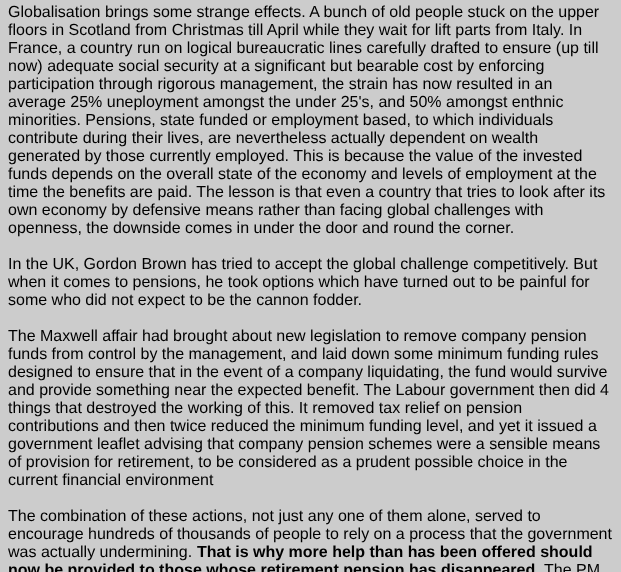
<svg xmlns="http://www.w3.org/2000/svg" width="621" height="572">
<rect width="100%" height="100%" fill="#ccc"/>
<text x="8" y="17" style="font-family:Liberation Sans;font-size:16px;fill:#000">Globalisation brings some strange effects. A bunch of old people stuck on the upper</text>
<text x="8" y="35" style="font-family:Liberation Sans;font-size:16px;fill:#000">floors in Scotland from Christmas till April while they wait for lift parts from Italy. In</text>
<text x="8" y="53" style="font-family:Liberation Sans;font-size:16px;fill:#000">France, a country run on logical bureaucratic lines carefully drafted to ensure (up till</text>
<text x="8" y="71" style="font-family:Liberation Sans;font-size:16px;fill:#000">now) adequate social security at a significant but bearable cost by enforcing</text>
<text x="8" y="89" style="font-family:Liberation Sans;font-size:16px;fill:#000">participation through rigorous management, the strain has now resulted in an</text>
<text x="8" y="107" style="font-family:Liberation Sans;font-size:16px;fill:#000">average 25% uneployment amongst the under 25's, and 50% amongst enthnic</text>
<text x="8" y="125" style="font-family:Liberation Sans;font-size:16px;fill:#000">minorities. Pensions, state funded or employment based, to which individuals</text>
<text x="8" y="143" style="font-family:Liberation Sans;font-size:16px;fill:#000">contribute during their lives, are nevertheless actually dependent on wealth</text>
<text x="8" y="161" style="font-family:Liberation Sans;font-size:16px;fill:#000">generated by those currently employed. This is because the value of the invested</text>
<text x="8" y="179" style="font-family:Liberation Sans;font-size:16px;fill:#000">funds depends on the overall state of the economy and levels of employment at the</text>
<text x="8" y="197" style="font-family:Liberation Sans;font-size:16px;fill:#000">time the benefits are paid. The lesson is that even a country that tries to look after its</text>
<text x="8" y="215" style="font-family:Liberation Sans;font-size:16px;fill:#000">own economy by defensive means rather than facing global challenges with</text>
<text x="8" y="233" style="font-family:Liberation Sans;font-size:16px;fill:#000">openness, the downside comes in under the door and round the corner.</text>
<text x="8" y="269" style="font-family:Liberation Sans;font-size:16px;fill:#000">In the UK, Gordon Brown has tried to accept the global challenge competitively. But</text>
<text x="8" y="287" style="font-family:Liberation Sans;font-size:16px;fill:#000">when it comes to pensions, he took options which have turned out to be painful for</text>
<text x="8" y="305" style="font-family:Liberation Sans;font-size:16px;fill:#000">some who did not expect to be the cannon fodder.</text>
<text x="8" y="341" style="font-family:Liberation Sans;font-size:16px;fill:#000">The Maxwell affair had brought about new legislation to remove company pension</text>
<text x="8" y="359" style="font-family:Liberation Sans;font-size:16px;fill:#000">funds from control by the management, and laid down some minimum funding rules</text>
<text x="8" y="377" style="font-family:Liberation Sans;font-size:16px;fill:#000">designed to ensure that in the event of a company liquidating, the fund would survive</text>
<text x="8" y="395" style="font-family:Liberation Sans;font-size:16px;fill:#000">and provide something near the expected benefit. The Labour government then did 4</text>
<text x="8" y="413" style="font-family:Liberation Sans;font-size:16px;fill:#000">things that destroyed the working of this. It removed tax relief on pension</text>
<text x="8" y="431" style="font-family:Liberation Sans;font-size:16px;fill:#000">contributions and then twice reduced the minimum funding level, and yet it issued a</text>
<text x="8" y="449" style="font-family:Liberation Sans;font-size:16px;fill:#000">government leaflet advising that company pension schemes were a sensible means</text>
<text x="8" y="467" style="font-family:Liberation Sans;font-size:16px;fill:#000">of provision for retirement, to be considered as a prudent possible choice in the</text>
<text x="8" y="485" style="font-family:Liberation Sans;font-size:16px;fill:#000">current financial environment</text>
<text x="8" y="521" style="font-family:Liberation Sans;font-size:16px;fill:#000">The combination of these actions, not just any one of them alone, served to</text>
<text x="8" y="539" style="font-family:Liberation Sans;font-size:16px;fill:#000">encourage hundreds of thousands of people to rely on a process that the government</text>
<text x="8" y="557" style="font-family:Liberation Sans;font-size:16px;fill:#000">was actually undermining.</text>
<text x="197" y="557" style="font-family:Liberation Sans;font-size:16px;font-weight:bold;fill:#000">That is why more help than has been offered should</text>
<text x="8" y="575" style="font-family:Liberation Sans;font-size:16px;font-weight:bold;fill:#000">now be provided to those whose retirement pension has disappeared</text>
<text x="544" y="575" style="font-family:Liberation Sans;font-size:16px;fill:#000">The PM</text>
</svg>
